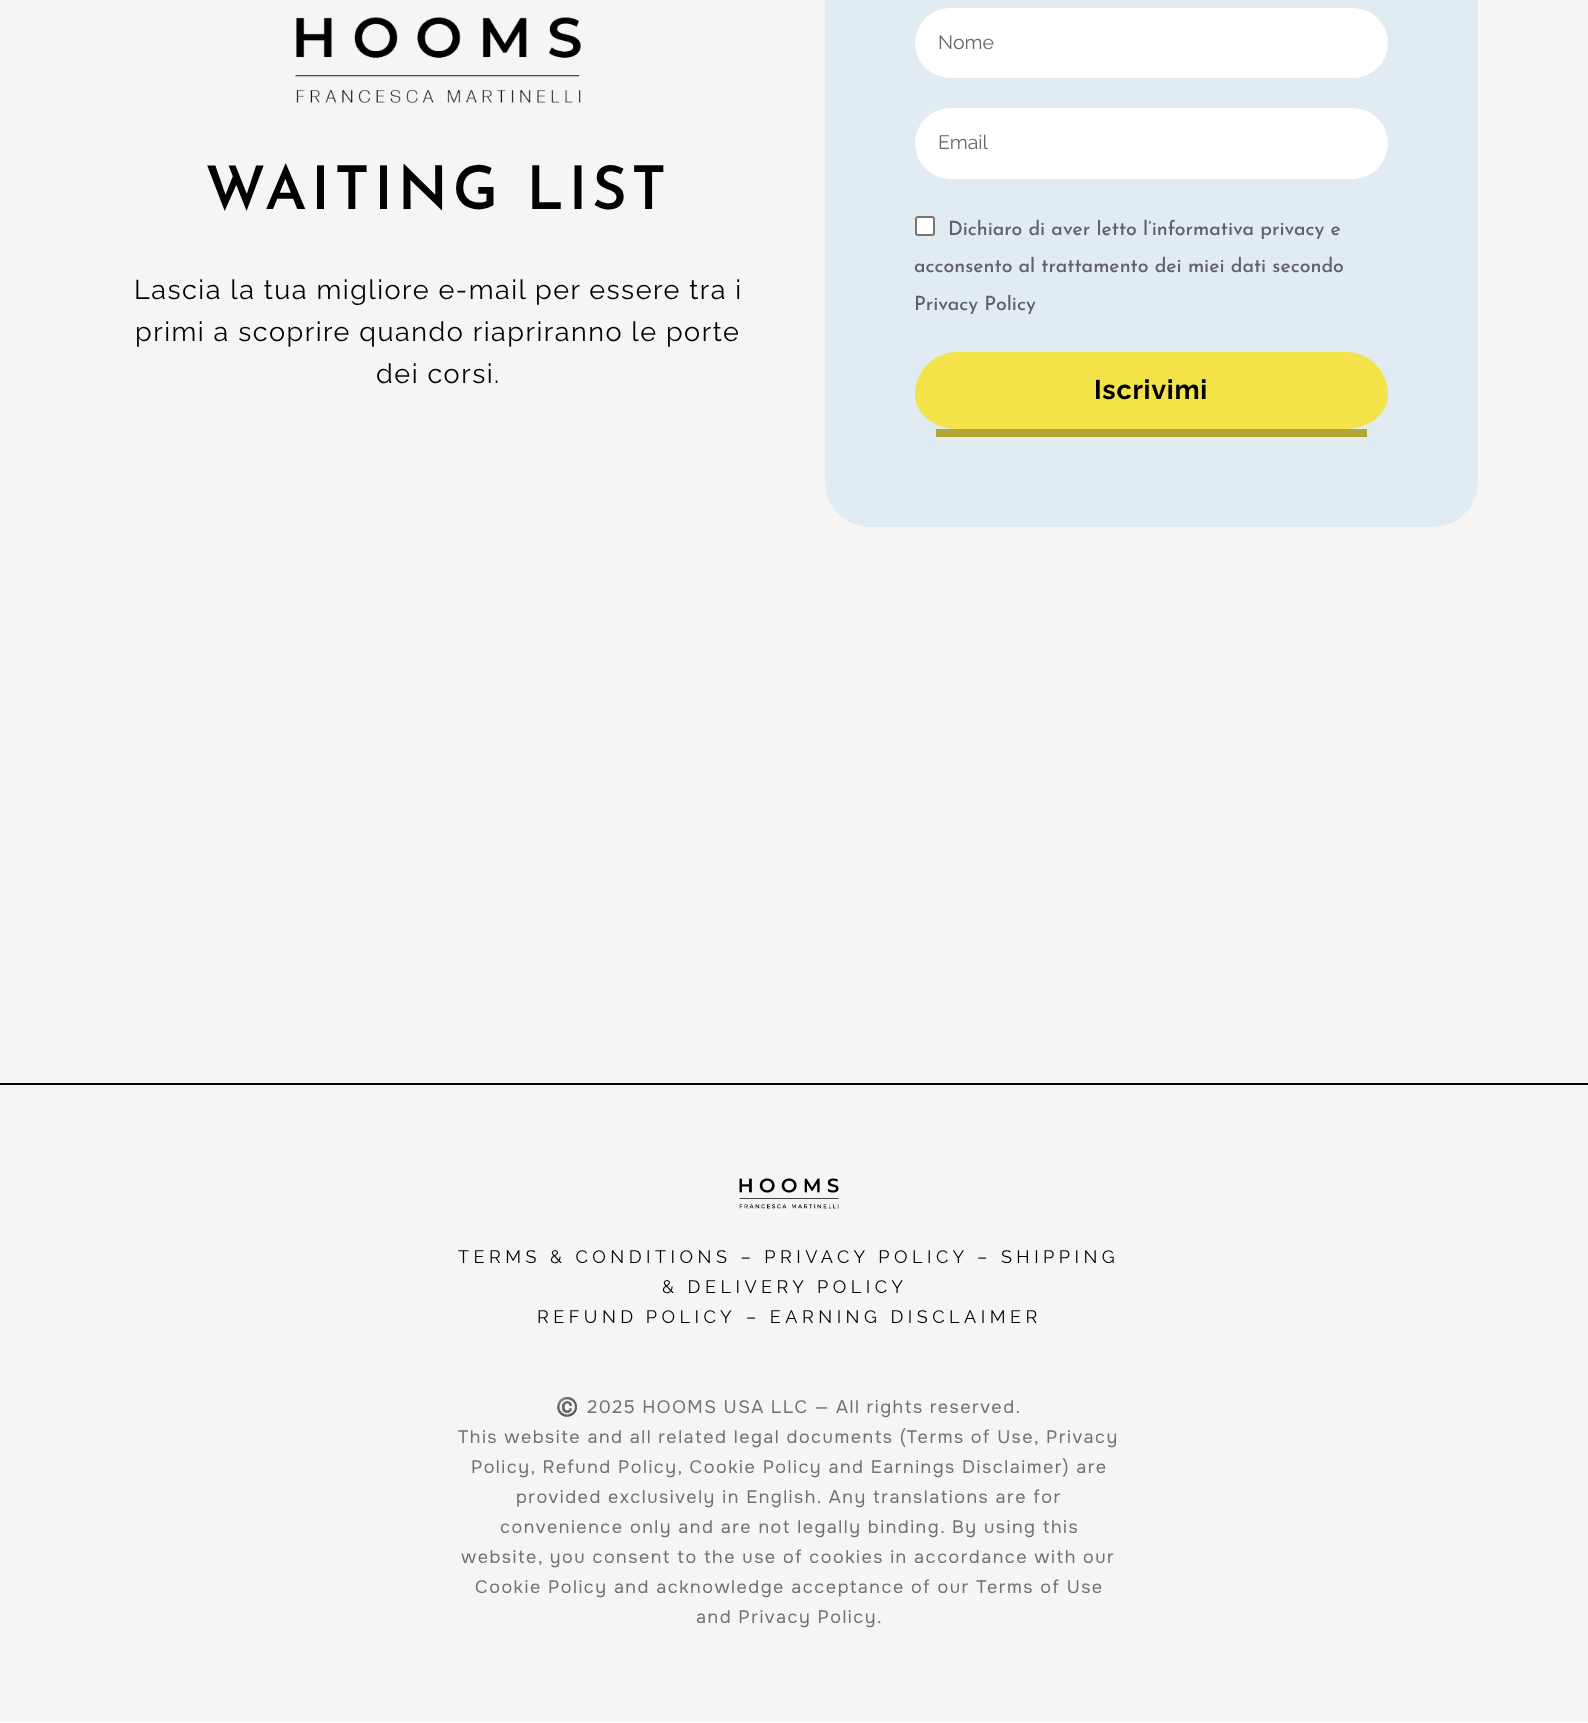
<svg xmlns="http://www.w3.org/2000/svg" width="1588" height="1723">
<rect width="100%" height="100%" fill="#fff"/>
<rect width="1588" height="1083" fill="#f6f5f3"/>
<image x="295" y="17" width="286" height="86" href="media/1.png"/>
<text x="205" y="209" style="font-family:Josefin Sans;font-size:60px;font-weight:600;letter-spacing:4.5px;fill:#000">WAITING LIST</text>
<text x="134" y="299" style="font-family:Raleway;font-size:27px;letter-spacing:1.5px;fill:#000">Lascia la tua migliore e-mail per essere tra i</text>
<text x="135" y="341" style="font-family:Raleway;font-size:27px;letter-spacing:1.5px;fill:#000">primi a scoprire quando riapriranno le porte</text>
<text x="376" y="383" style="font-family:Raleway;font-size:27px;letter-spacing:1.5px;fill:#000">dei corsi.</text>
<rect x="825" y="-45" width="653" height="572" rx="45" fill="#e0ebf2"/>
<rect x="915" y="8" width="473" height="70" rx="35" fill="#fff"/>
<text x="938" y="49" style="font-family:Raleway;font-size:19.5px;fill:#676767">Nome</text>
<rect x="915" y="108" width="473" height="71" rx="35.5" fill="#fff"/>
<text x="938" y="149" style="font-family:Raleway;font-size:19.5px;fill:#676767">Email</text>
<rect x="916" y="217" width="18" height="18" rx="2" fill="#fff" stroke="#767676" stroke-width="2"/>
<text x="948" y="235" style="font-family:Josefin Sans;font-size:19.5px;font-weight:500;fill:#616161">Dichiaro di aver letto l’informativa privacy e</text>
<text x="914" y="272" style="font-family:Josefin Sans;font-size:19.5px;font-weight:500;fill:#616161">acconsento al trattamento dei miei dati secondo</text>
<text x="914" y="310" style="font-family:Josefin Sans;font-size:19.5px;font-weight:500;fill:#616161">Privacy Policy</text>
<path d="M957 352h389c23 0 42 19 42 42c0 20-19 35-42 35h-389c-23 0-42-15-42-35c0-23 19-42 42-42z" fill="#f4e348"/>
<rect x="936" y="429" width="431" height="8" fill="#b3a632"/>
<text x="1094" y="399" style="font-family:Raleway;font-size:27px;font-weight:bold;letter-spacing:0.75px;fill:#000">Iscrivimi</text>
<rect y="1085" width="1588" height="637" fill="#f6f5f3"/>
<rect y="1083" width="1588" height="2" fill="#020202"/>
<image x="739" y="1178" width="100" height="31" href="media/2.png"/>
<text x="458" y="1263" style="font-family:Raleway;font-size:18px;letter-spacing:4.5px;fill:#000">TERMS &amp; CONDITIONS – PRIVACY POLICY – SHIPPING</text>
<text x="662" y="1293" style="font-family:Raleway;font-size:18px;letter-spacing:4.5px;fill:#000">&amp; DELIVERY POLICY</text>
<text x="537" y="1323" word-spacing="-1" style="font-family:Raleway;font-size:18px;letter-spacing:4.5px;fill:#000">REFUND POLICY</text>
<text x="746" y="1323" style="font-family:Raleway;font-size:18px;letter-spacing:4.5px;fill:#000">– EARNING DISCLAIMER</text>
<text x="556" y="1413" style="font-family:Noto Color Emoji;font-size:18px;letter-spacing:1.5px;fill:#727272">©️</text>
<text x="587" y="1413" word-spacing="-0.25" style="font-family:Onest;font-size:18px;letter-spacing:1.5px;fill:#727272">2025 HOOMS USA LLC — All rights reserved.</text>
<text x="458" y="1443" word-spacing="-0.1" style="font-family:Onest;font-size:18px;letter-spacing:1.5px;fill:#727272">This website and all related legal documents (Terms of Use, Privacy</text>
<text x="471" y="1473" style="font-family:Onest;font-size:18px;letter-spacing:1.5px;fill:#727272">Policy, Refund Policy, Cookie Policy and Earnings Disclaimer) are</text>
<text x="516" y="1503" style="font-family:Onest;font-size:18px;letter-spacing:1.5px;fill:#727272">provided exclusively in English. Any translations are for</text>
<text x="500" y="1533" style="font-family:Onest;font-size:18px;letter-spacing:1.5px;fill:#727272">convenience only and are not legally binding. By using this</text>
<text x="461" y="1563" word-spacing="-0.1" style="font-family:Onest;font-size:18px;letter-spacing:1.5px;fill:#727272">website, you consent to the use of cookies in accordance with our</text>
<text x="475" y="1593" style="font-family:Onest;font-size:18px;letter-spacing:1.5px;fill:#727272">Cookie Policy and acknowledge acceptance of our Terms of Use</text>
<text x="696" y="1623" style="font-family:Onest;font-size:18px;letter-spacing:1.5px;fill:#727272">and Privacy Policy.</text>
</svg>
